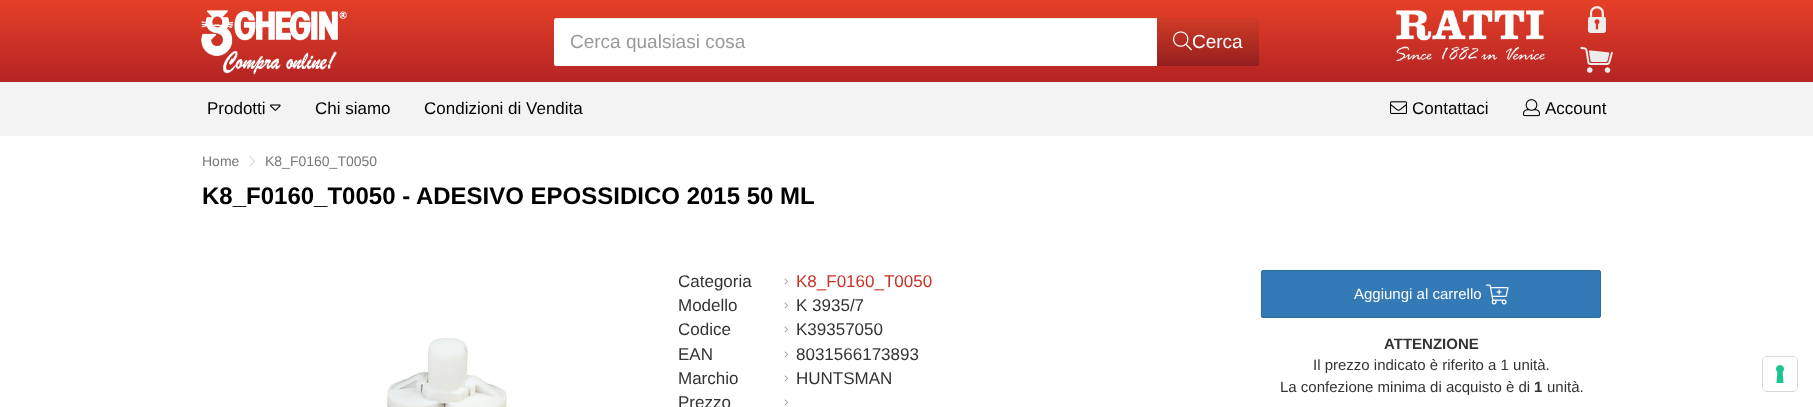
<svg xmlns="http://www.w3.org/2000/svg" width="1813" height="407">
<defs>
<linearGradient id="g1" gradientUnits="userSpaceOnUse" x1="907" y1="0" x2="907" y2="82"><stop offset="0" stop-color="#e54028"/><stop offset="1" stop-color="#b52424"/></linearGradient>
<linearGradient id="g2" gradientUnits="userSpaceOnUse" x1="1208" y1="18" x2="1208" y2="66"><stop offset="0" stop-color="#d03b26"/><stop offset="1" stop-color="#941f1f"/></linearGradient>
</defs>
<rect width="100%" height="100%" fill="#fff"/>
<rect width="1813" height="82" fill="url(#g1)"/>
<image x="201" y="10" width="146" height="65" href="media/1.png"/>
<path d="M556 18h602v48h-602c-1 0-2-1-2-2v-44c0-1 1-2 2-2z" fill="#fff"/>
<path d="M556 19h602v-1h-602l-2 1v2c0-1 1-2 2-2z" fill="#00000012"/>
<text x="570" y="48" style="font-family:Liberation Sans;font-size:19px;fill:#999">Cerca qualsiasi cosa</text>
<path d="M1157 18h100c1 0 2 1 2 2v44c0 1-1 2-2 2h-100z" fill="url(#g2)"/>
<image x="1173" y="31" width="19" height="20" href="media/2.png"/>
<text x="1192" y="48" style="font-family:Liberation Sans;font-size:19px;fill:#fff">Cerca</text>
<image x="1396" y="10" width="149" height="51" href="media/3.png"/>
<image x="1588" y="6" width="18" height="27" href="media/4.png"/>
<image x="1580" y="47" width="33" height="26" href="media/5.png"/>
<rect y="82" width="1813" height="54" fill="#f3f3f3"/>
<text x="207" y="114" style="font-family:Liberation Sans;font-size:17px;fill:#000">Prodotti</text>
<image x="270" y="104" width="11" height="7" href="media/6.png"/>
<text x="315" y="114" style="font-family:Liberation Sans;font-size:17px;fill:#000">Chi siamo</text>
<text x="424" y="114" style="font-family:Liberation Sans;font-size:17px;fill:#000">Condizioni di Vendita</text>
<image x="1390" y="101" width="17" height="13" href="media/7.png"/>
<text x="1412" y="114" style="font-family:Liberation Sans;font-size:17px;fill:#000">Contattaci</text>
<image x="1523" y="99" width="17" height="18" href="media/8.png"/>
<text x="1545" y="114" style="font-family:Liberation Sans;font-size:17px;fill:#000">Account</text>
<text x="202" y="166" style="font-family:Liberation Sans;font-size:14px;fill:#777">Home</text>
<image x="249" y="155" width="6" height="12" href="media/9.png"/>
<text x="265" y="166" style="font-family:Liberation Sans;font-size:14px;fill:#777">K8_F0160_T0050</text>
<text x="202" y="204" style="font-family:Liberation Sans;font-size:24px;font-weight:bold;fill:#000">K8_F0160_T0050 - ADESIVO EPOSSIDICO 2015 50 ML</text>
<image x="387" y="338" width="120" height="69" href="media/10.png"/>
<text x="678" y="287" style="font-family:Liberation Sans;font-size:17px;fill:#333">Categoria</text>
<image x="784" y="278" width="4" height="7" href="media/11.png"/>
<text x="796" y="287" style="font-family:Liberation Sans;font-size:17px;fill:#c93026">K8_F0160_T0050</text>
<text x="678" y="311" style="font-family:Liberation Sans;font-size:17px;fill:#333">Modello</text>
<image x="784" y="302" width="4" height="7" href="media/11.png"/>
<text x="796" y="311" style="font-family:Liberation Sans;font-size:17px;fill:#333">K 3935/7</text>
<text x="678" y="335" style="font-family:Liberation Sans;font-size:17px;fill:#333">Codice</text>
<image x="784" y="326" width="4" height="7" href="media/11.png"/>
<text x="796" y="335" style="font-family:Liberation Sans;font-size:17px;fill:#333">K39357050</text>
<text x="678" y="360" style="font-family:Liberation Sans;font-size:17px;fill:#333">EAN</text>
<image x="784" y="351" width="4" height="7" href="media/11.png"/>
<text x="796" y="360" style="font-family:Liberation Sans;font-size:17px;fill:#333">8031566173893</text>
<text x="678" y="384" style="font-family:Liberation Sans;font-size:17px;fill:#333">Marchio</text>
<image x="784" y="375" width="4" height="7" href="media/11.png"/>
<text x="796" y="384" style="font-family:Liberation Sans;font-size:17px;fill:#333">HUNTSMAN</text>
<text x="678" y="408" style="font-family:Liberation Sans;font-size:17px;fill:#333">Prezzo</text>
<image x="784" y="399" width="4" height="7" href="media/11.png"/>
<rect x="1261.5" y="270.5" width="339" height="47" rx="1.5" fill="#337ab7" stroke="#2e6da4"/>
<text x="1354" y="299" style="font-family:Liberation Sans;font-size:15px;fill:#fff">Aggiungi al carrello</text>
<image x="1486" y="284" width="23" height="21" href="media/12.png"/>
<text x="1384" y="349" style="font-family:Liberation Sans;font-size:15px;font-weight:bold;fill:#333">ATTENZIONE</text>
<text x="1313" y="370" style="font-family:Liberation Sans;font-size:15px;fill:#333">Il prezzo indicato è riferito a 1 unità.</text>
<text x="1280" y="392" style="font-family:Liberation Sans;font-size:15px;fill:#333">La confezione minima di acquisto è di</text>
<text x="1534" y="392" style="font-family:Liberation Sans;font-size:15px;font-weight:bold;fill:#333">1</text>
<text x="1547" y="392" style="font-family:Liberation Sans;font-size:15px;fill:#333">unità.</text>
<rect x="1762.5" y="356.5" width="35" height="35" rx="4.5" fill="none" stroke="#d9d9d9"/>
<rect x="1763" y="357" width="34" height="34" rx="4" fill="#fff"/>
<image x="1776" y="365" width="8" height="18" href="media/13.png"/>
</svg>
